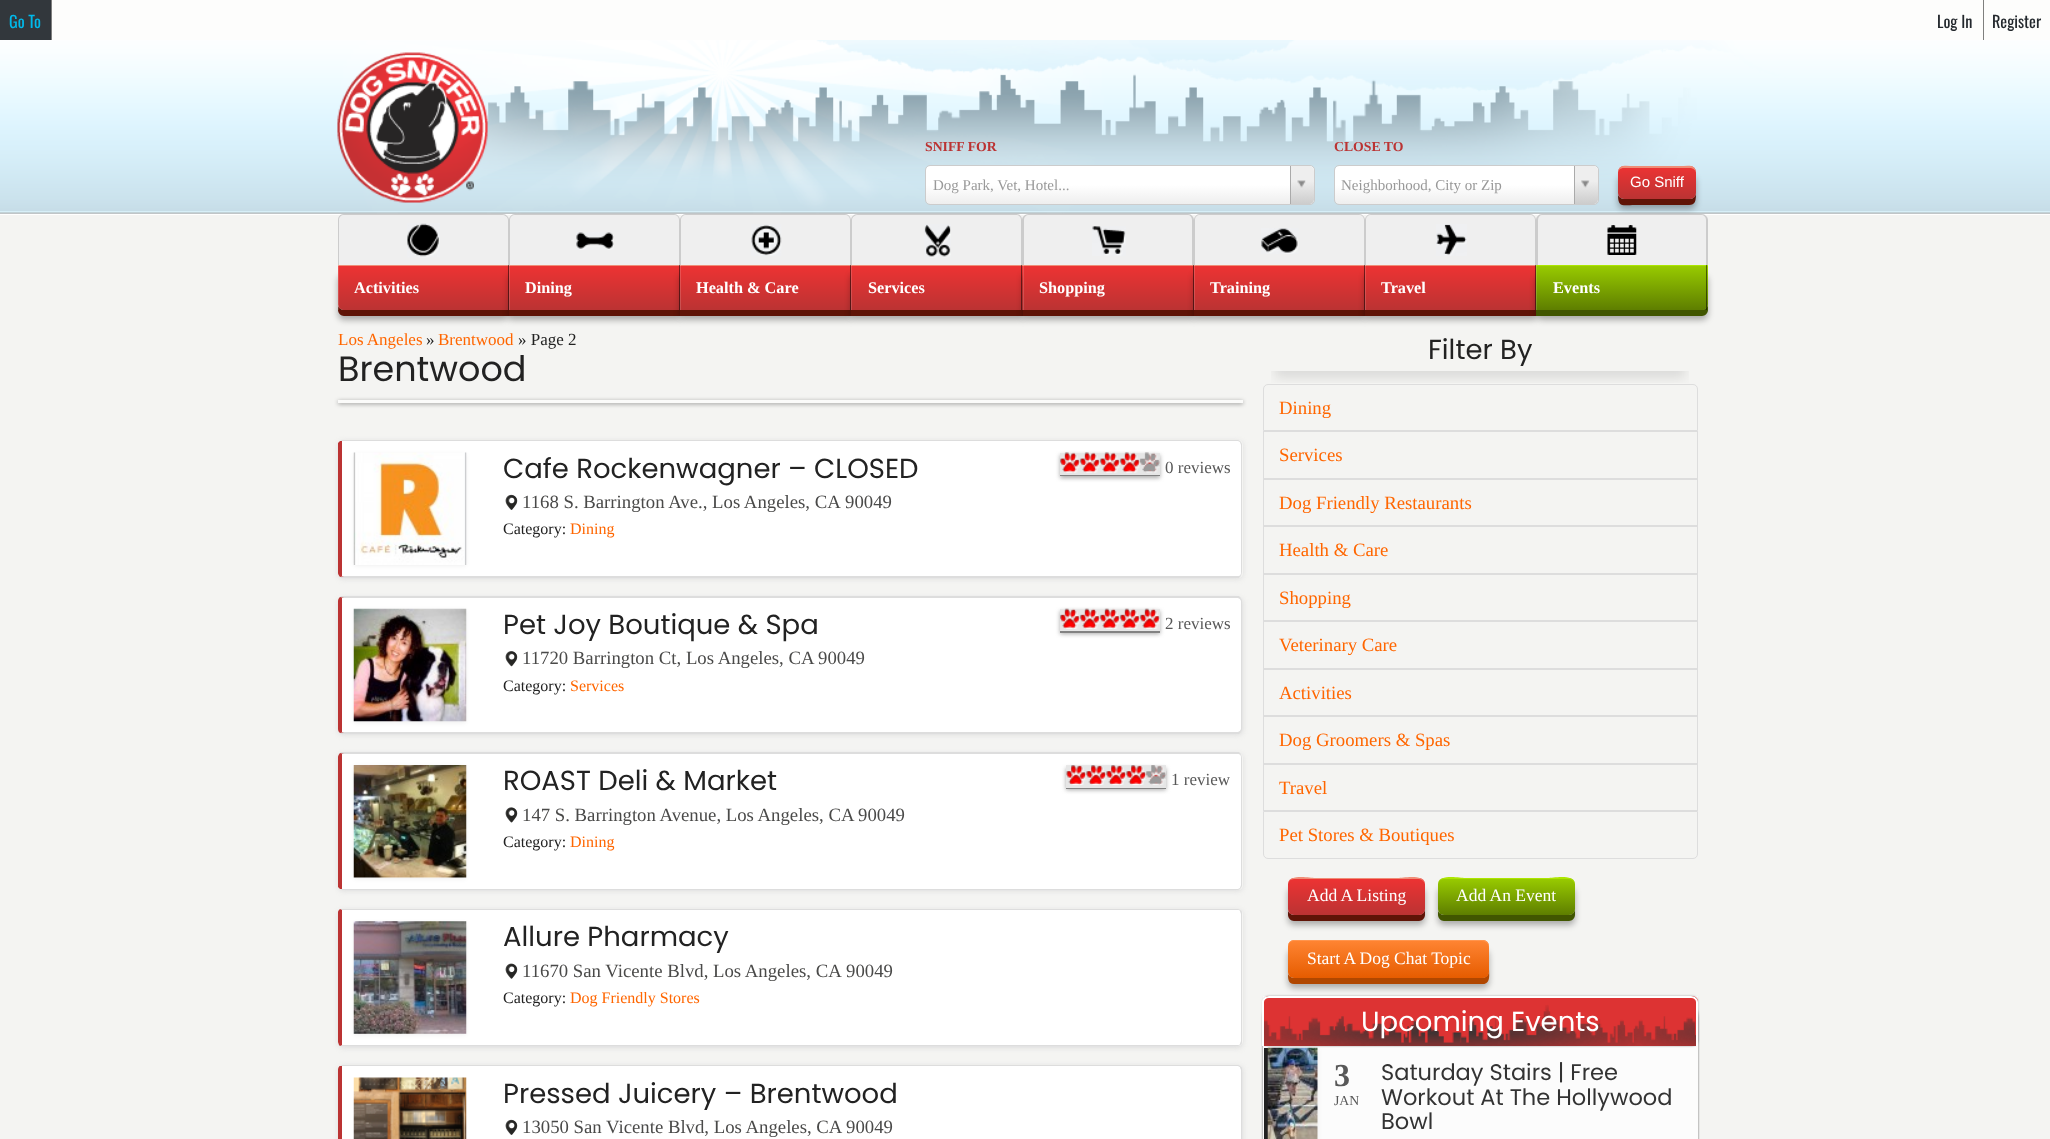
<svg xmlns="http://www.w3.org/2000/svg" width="2050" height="1139">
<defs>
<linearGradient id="g1" gradientUnits="userSpaceOnUse" x1="926" y1="204" x2="926" y2="166"><stop offset="0" stop-color="#eee"/><stop offset="0.5" stop-color="#fff"/></linearGradient>
<clipPath id="clip1"><rect x="926" y="166" width="388" height="38" rx="4"/></clipPath>
<linearGradient id="g2" gradientUnits="userSpaceOnUse" x1="1291" y1="204" x2="1291" y2="166"><stop offset="0" stop-color="#ccc"/><stop offset="0.6" stop-color="#eee"/></linearGradient>
<linearGradient id="g3" gradientUnits="userSpaceOnUse" x1="1335" y1="204" x2="1335" y2="166"><stop offset="0" stop-color="#eee"/><stop offset="0.5" stop-color="#fff"/></linearGradient>
<clipPath id="clip2"><rect x="1335" y="166" width="263" height="38" rx="4"/></clipPath>
<linearGradient id="g4" gradientUnits="userSpaceOnUse" x1="1575" y1="204" x2="1575" y2="166"><stop offset="0" stop-color="#ccc"/><stop offset="0.6" stop-color="#eee"/></linearGradient>
<linearGradient id="g5" gradientUnits="userSpaceOnUse" x1="1657" y1="166" x2="1657" y2="199"><stop offset="0" stop-color="#e33"/><stop offset="1" stop-color="#b33"/></linearGradient>
<linearGradient id="g6" gradientUnits="userSpaceOnUse" x1="423" y1="265" x2="423" y2="310"><stop offset="0" stop-color="#e33"/><stop offset="1" stop-color="#b33"/></linearGradient>
<linearGradient id="g7" gradientUnits="userSpaceOnUse" x1="594" y1="265" x2="594" y2="310"><stop offset="0" stop-color="#e33"/><stop offset="1" stop-color="#b33"/></linearGradient>
<linearGradient id="g8" gradientUnits="userSpaceOnUse" x1="594" y1="265" x2="594" y2="310"><stop offset="0" stop-color="#771a1a"/><stop offset="1" stop-color="#5e1a1a"/></linearGradient>
<linearGradient id="g9" gradientUnits="userSpaceOnUse" x1="766" y1="265" x2="766" y2="310"><stop offset="0" stop-color="#e33"/><stop offset="1" stop-color="#b33"/></linearGradient>
<linearGradient id="g10" gradientUnits="userSpaceOnUse" x1="766" y1="265" x2="766" y2="310"><stop offset="0" stop-color="#771a1a"/><stop offset="1" stop-color="#5e1a1a"/></linearGradient>
<linearGradient id="g11" gradientUnits="userSpaceOnUse" x1="937" y1="265" x2="937" y2="310"><stop offset="0" stop-color="#e33"/><stop offset="1" stop-color="#b33"/></linearGradient>
<linearGradient id="g12" gradientUnits="userSpaceOnUse" x1="937" y1="265" x2="937" y2="310"><stop offset="0" stop-color="#771a1a"/><stop offset="1" stop-color="#5e1a1a"/></linearGradient>
<linearGradient id="g13" gradientUnits="userSpaceOnUse" x1="1108" y1="265" x2="1108" y2="310"><stop offset="0" stop-color="#e33"/><stop offset="1" stop-color="#b33"/></linearGradient>
<linearGradient id="g14" gradientUnits="userSpaceOnUse" x1="1279" y1="265" x2="1279" y2="310"><stop offset="0" stop-color="#e33"/><stop offset="1" stop-color="#b33"/></linearGradient>
<linearGradient id="g15" gradientUnits="userSpaceOnUse" x1="1279" y1="265" x2="1279" y2="310"><stop offset="0" stop-color="#771a1a"/><stop offset="1" stop-color="#5e1a1a"/></linearGradient>
<linearGradient id="g16" gradientUnits="userSpaceOnUse" x1="1451" y1="265" x2="1451" y2="310"><stop offset="0" stop-color="#e33"/><stop offset="1" stop-color="#b33"/></linearGradient>
<linearGradient id="g17" gradientUnits="userSpaceOnUse" x1="1451" y1="265" x2="1451" y2="310"><stop offset="0" stop-color="#771a1a"/><stop offset="1" stop-color="#5e1a1a"/></linearGradient>
<linearGradient id="g18" gradientUnits="userSpaceOnUse" x1="1622" y1="265" x2="1622" y2="310"><stop offset="0" stop-color="#9c0"/><stop offset="1" stop-color="#5e7e00"/></linearGradient>
<clipPath id="clip3"><path d="M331 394h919v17h-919zm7 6h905v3h-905z" clip-rule="evenodd"/></clipPath>
<clipPath id="clip4"><path d="M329 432h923v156h-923zm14 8h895c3 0 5 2 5 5v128c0 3-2 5-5 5h-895c-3 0-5-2-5-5v-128c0-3 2-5 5-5z" clip-rule="evenodd"/></clipPath>
<clipPath id="clip5"><path d="M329 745h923v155h-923zm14 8h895c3 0 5 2 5 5v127c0 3-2 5-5 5h-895c-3 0-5-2-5-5v-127c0-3 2-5 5-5z" clip-rule="evenodd"/></clipPath>
<clipPath id="clip6"><path d="M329 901h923v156h-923zm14 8h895c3 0 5 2 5 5v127c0 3-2 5-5 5h-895c-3 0-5-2-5-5v-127c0-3 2-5 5-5z" clip-rule="evenodd"/></clipPath>
<clipPath id="clip7"><rect x="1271" y="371" width="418" height="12"/></clipPath>
<linearGradient id="g19" gradientUnits="userSpaceOnUse" x1="1356" y1="878" x2="1356" y2="915"><stop offset="0" stop-color="#e33"/><stop offset="1" stop-color="#b33"/></linearGradient>
<linearGradient id="g20" gradientUnits="userSpaceOnUse" x1="1506" y1="878" x2="1506" y2="915"><stop offset="0" stop-color="#9c0"/><stop offset="1" stop-color="#5e7e00"/></linearGradient>
<linearGradient id="g21" gradientUnits="userSpaceOnUse" x1="1388" y1="940" x2="1388" y2="978"><stop offset="0" stop-color="#ff8533"/><stop offset="1" stop-color="#e65c00"/></linearGradient>
</defs>
<rect width="100%" height="100%" fill="#f4f4f2"/>
<rect x="52" width="1998" height="40" fill="#fdfdfc"/>
<rect x="51" width="1" height="40" fill="#7f7f7e"/>
<rect width="51" height="40" fill="#32373c"/>
<text x="9" y="28" style="font-family:Oswald;font-size:16.25px;fill:#00b9eb">Go To</text>
<rect x="1983" width="1" height="40" fill="#7f7f7e"/>
<text x="1937" y="28" style="font-family:Oswald;font-size:16.25px;fill:#23282d">Log In</text>
<text x="1992" y="28" style="font-family:Oswald;font-size:16.25px;fill:#23282d">Register</text>
<rect y="214" width="2050" height="1" fill="#fff"/>
<image x="0" y="40" width="2050" height="174" href="media/1.png"/>
<image x="337" y="52" width="151" height="151" href="media/2.png"/>
<text x="925" y="151" style="font-family:Liberation Serif;font-size:13.75px;font-weight:bold;fill:#b33">SNIFF FOR</text>
<rect x="926" y="166" width="388" height="38" rx="4" fill="url(#g1)"/>
<rect x="925.5" y="165.5" width="389" height="39" rx="4.5" fill="none" stroke="#ccc"/>
<text x="933" y="190" style="font-family:Liberation Serif;font-size:15px;fill:#999">Dog Park, Vet, Hotel...</text>
<g clip-path="url(#clip1)">
<path d="M1290 166h19c3 0 5 2 5 5v28c0 3-2 5-5 5h-19z" fill="url(#g2)"/>
</g>
<rect x="1290" y="166" width="1" height="38" fill="#aaa"/>
<image x="1297" y="180" width="9" height="8" href="media/3.png"/>
<text x="1334" y="151" style="font-family:Liberation Serif;font-size:13.75px;font-weight:bold;fill:#b33">CLOSE TO</text>
<rect x="1335" y="166" width="263" height="38" rx="4" fill="url(#g3)"/>
<rect x="1334.5" y="165.5" width="264" height="39" rx="4.5" fill="none" stroke="#ccc"/>
<text x="1341" y="190" style="font-family:Liberation Serif;font-size:15px;fill:#999">Neighborhood, City or Zip</text>
<g clip-path="url(#clip2)">
<path d="M1574 166h19c3 0 5 2 5 5v28c0 3-2 5-5 5h-19z" fill="url(#g4)"/>
</g>
<rect x="1574" y="166" width="1" height="38" fill="#aaa"/>
<image x="1581" y="180" width="9" height="8" href="media/4.png"/>
<rect x="1618" y="176" width="78" height="33" rx="6" fill="#0000004d" filter="blur(3px)"/>
<path d="M1618 195c0 13 5 10 17 10h44c13 0 17 2 17-11c-1 3-3 5-6 5h-66c-3 0-5-2-6-4z" fill="#5f1407"/>
<rect x="1618" y="166" width="78" height="33" rx="6" fill="url(#g5)"/>
<path d="M1624 168h66c3 0 6 2 6 6c0-11-8-8-17-8h-44c-9 0-17-3-17 8c0-4 2-6 6-6z" fill="#ef8d77"/>
<text x="1630" y="187" style="font-family:Liberation Sans;font-size:15px;fill:#fff">Go Sniff</text>
<rect x="338" y="275" width="171" height="45" rx="6" fill="#0000004d" filter="blur(3px)"/>
<path d="M338 306v4c0 3 3 6 6 6h165v-45v39h-165c-3 0-5-2-6-4z" fill="#5f1407"/>
<path d="M338 265h171v45h-165c-3.5 0-6-2.5-6-6z" fill="url(#g6)"/>
<rect x="338" y="265" width="171" height="1" fill="#ef8d77"/>
<path d="M344 214h159c3.5 0 6 2.5 6 6v45h-171v-45c0-3.5 2.5-6 6-6z" fill="#efefef"/>
<image x="407" y="223" width="33" height="35" href="media/5.png"/>
<path d="M344 214h158c4 0 7 3 7 6v45h-171v-45c0-3 2-6 6-6zm0 1h158c3 0 6 2 6 5v45h-169v-45c0-3 2-5 5-5z" fill="#ccc" fill-rule="evenodd"/>
<rect x="508" y="265" width="1" height="45" fill="#00000080"/>
<rect x="338" y="265" width="1" height="45" fill="#ffffff26"/>
<text x="354" y="293" style="font-family:Liberation Serif;font-size:16.25px;font-weight:bold;fill:#fff">Activities</text>
<rect x="509" y="275" width="171" height="45" fill="#0000004d" filter="blur(3px)"/>
<rect x="509" y="310" width="171" height="6" fill="#5f1407"/>
<rect x="509" y="266" width="170" height="44" fill="url(#g7)"/>
<rect x="679" y="265" width="1" height="45" fill="url(#g8)"/>
<rect x="509" y="265" width="171" height="1" fill="#ef8d77"/>
<rect x="679" y="265" width="1" height="1" fill="#78473c"/>
<path d="M515 214h159c3.5 0 6 2.5 6 6v45h-171v-45c0-3.5 2.5-6 6-6z" fill="#efefef"/>
<image x="576" y="232" width="38" height="18" href="media/6.png"/>
<path d="M515 214h159c3 0 6 3 6 6v45h-171v-45c0-3 3-6 6-6zm0 1h159c3 0 5 2 5 5v45h-169v-45c0-3 2-5 5-5z" fill="#ccc" fill-rule="evenodd"/>
<rect x="509" y="265" width="1" height="45" fill="#ffffff26"/>
<text x="525" y="293" style="font-family:Liberation Serif;font-size:16.25px;font-weight:bold;fill:#fff">Dining</text>
<rect x="680" y="275" width="171" height="45" fill="#0000004d" filter="blur(3px)"/>
<rect x="680" y="310" width="171" height="6" fill="#5f1407"/>
<rect x="680" y="266" width="170" height="44" fill="url(#g9)"/>
<rect x="850" y="265" width="1" height="45" fill="url(#g10)"/>
<rect x="680" y="265" width="171" height="1" fill="#ef8d77"/>
<rect x="850" y="265" width="1" height="1" fill="#78473c"/>
<path d="M686 214h159c3.5 0 6 2.5 6 6v45h-171v-45c0-3.5 2.5-6 6-6z" fill="#efefef"/>
<image x="751" y="224" width="31" height="32" href="media/7.png"/>
<path d="M686 214h159c3 0 6 3 6 6v45h-171v-45c0-3 3-6 6-6zm0 1h159c3 0 5 2 5 5v45h-169v-45c0-3 2-5 5-5z" fill="#ccc" fill-rule="evenodd"/>
<rect x="680" y="265" width="1" height="45" fill="#ffffff26"/>
<text x="696" y="293" style="font-family:Liberation Serif;font-size:16.25px;font-weight:bold;fill:#fff">Health &amp; Care</text>
<rect x="851" y="275" width="172" height="45" fill="#0000004d" filter="blur(3px)"/>
<path d="M851 271v45h172v-45h-1v39h-171z" fill="#5f1407"/>
<rect x="851" y="266" width="172" height="44" fill="url(#g11)"/>
<rect x="1021" y="265" width="1" height="45" fill="url(#g12)"/>
<rect x="851" y="265" width="172" height="1" fill="#ef8d77"/>
<rect x="1021" y="265" width="1" height="1" fill="#78473c"/>
<path d="M857 214h160c3.5 0 6 2.5 6 6v45h-172v-45c0-3.5 2.5-6 6-6z" fill="#efefef"/>
<image x="924" y="224" width="27" height="34" href="media/8.png"/>
<path d="M858 214h158c4 0 6 3 6 6v45h-171v-45c0-3 3-6 7-6zm0 1h158c3 0 5 2 5 5v45h-169v-45c0-3 3-5 6-5z" fill="#ccc" fill-rule="evenodd"/>
<rect x="851" y="265" width="1" height="45" fill="#ffffff26"/>
<text x="868" y="293" style="font-family:Liberation Serif;font-size:16.25px;font-weight:bold;fill:#fff">Services</text>
<rect x="1023" y="275" width="171" height="45" fill="#0000004d" filter="blur(3px)"/>
<path d="M1023 310v6h171v-45v39z" fill="#5f1407"/>
<rect x="1023" y="266" width="171" height="44" fill="url(#g13)"/>
<rect x="1023" y="265" width="171" height="1" fill="#ef8d77"/>
<path d="M1029 214h159c3.5 0 6 2.5 6 6v45h-171v-45c0-3.5 2.5-6 6-6z" fill="#efefef"/>
<image x="1092" y="226" width="34" height="30" href="media/9.png"/>
<path d="M1029 214h159c3 0 6 3 6 6v45h-172v-45c0-3 3-6 7-6zm0 1h159c2 0 4 2 4 5v45h-168v-45c0-3 2-5 5-5z" fill="#ccc" fill-rule="evenodd"/>
<rect x="1193" y="265" width="1" height="45" fill="#00000080"/>
<rect x="1023" y="265" width="1" height="45" fill="#ffffff26"/>
<text x="1039" y="293" style="font-family:Liberation Serif;font-size:16.25px;font-weight:bold;fill:#fff">Shopping</text>
<rect x="1194" y="275" width="171" height="45" fill="#0000004d" filter="blur(3px)"/>
<rect x="1194" y="310" width="171" height="6" fill="#5f1407"/>
<rect x="1194" y="266" width="170" height="44" fill="url(#g14)"/>
<rect x="1364" y="265" width="1" height="45" fill="url(#g15)"/>
<rect x="1194" y="265" width="171" height="1" fill="#ef8d77"/>
<rect x="1364" y="265" width="1" height="1" fill="#78473c"/>
<path d="M1200 214h159c3.5 0 6 2.5 6 6v45h-171v-45c0-3.5 2.5-6 6-6z" fill="#efefef"/>
<image x="1261" y="228" width="38" height="26" href="media/10.png"/>
<path d="M1200 214h159c3 0 6 3 6 6v45h-171v-45c0-3 3-6 6-6zm0 1h159c3 0 5 2 5 5v45h-169v-45c0-3 2-5 5-5z" fill="#ccc" fill-rule="evenodd"/>
<rect x="1194" y="265" width="1" height="45" fill="#ffffff26"/>
<text x="1210" y="293" style="font-family:Liberation Serif;font-size:16.25px;font-weight:bold;fill:#fff">Training</text>
<rect x="1365" y="275" width="171" height="45" fill="#0000004d" filter="blur(3px)"/>
<rect x="1365" y="310" width="171" height="6" fill="#5f1407"/>
<rect x="1365" y="266" width="170" height="44" fill="url(#g16)"/>
<rect x="1535" y="265" width="1" height="45" fill="url(#g17)"/>
<rect x="1365" y="265" width="171" height="1" fill="#ef8d77"/>
<rect x="1535" y="265" width="1" height="1" fill="#78473c"/>
<path d="M1371 214h159c3.5 0 6 2.5 6 6v45h-171v-45c0-3.5 2.5-6 6-6z" fill="#efefef"/>
<image x="1436" y="224" width="31" height="32" href="media/11.png"/>
<path d="M1371 214h159c3 0 6 3 6 6v45h-171v-45c0-3 3-6 6-6zm0 1h159c3 0 5 2 5 5v45h-169v-45c0-3 2-5 5-5z" fill="#ccc" fill-rule="evenodd"/>
<rect x="1365" y="265" width="1" height="45" fill="#ffffff26"/>
<text x="1381" y="293" style="font-family:Liberation Serif;font-size:16.25px;font-weight:bold;fill:#fff">Travel</text>
<rect x="1536" y="275" width="172" height="45" rx="6" fill="#0000004d" filter="blur(3px)"/>
<path d="M1536 271v45h166c3 0 6-3 6-6v-39v33c0 3-3 6-7 6h-165z" fill="#415600"/>
<path d="M1536 265h172v39c0 3.5-2.5 6-6 6h-166z" fill="url(#g18)"/>
<rect x="1536" y="265" width="172" height="1" fill="#ace600"/>
<path d="M1542 214h160c3.5 0 6 2.5 6 6v45h-172v-45c0-3.5 2.5-6 6-6z" fill="#efefef"/>
<image x="1607" y="225" width="30" height="30" href="media/12.png"/>
<path d="M1542 214h159c4 0 7 3 7 6v45h-172v-45c0-3 3-6 6-6zm0 1h159c3 0 5 2 5 5v45h-168v-45c0-3 2-5 4-5z" fill="#ccc" fill-rule="evenodd"/>
<rect x="1706" y="265" width="1" height="45" fill="#00000080"/>
<rect x="1536" y="265" width="1" height="45" fill="#ffffff26"/>
<text x="1553" y="293" style="font-family:Liberation Serif;font-size:16.25px;font-weight:bold;fill:#fff">Events</text>
<text x="338" y="345" style="font-family:Liberation Serif;font-size:17px;fill:#f60">Los Angeles</text>
<text x="426" y="345" style="font-family:Liberation Serif;font-size:17px;fill:#222">»</text>
<text x="438" y="345" style="font-family:Liberation Serif;font-size:17px;fill:#f60">Brentwood</text>
<text x="518" y="345" style="font-family:Liberation Serif;font-size:17px;fill:#222">» Page 2</text>
<text x="338" y="381" style="font-family:Poppins;font-size:35px;fill:#222">Brentwood</text>
<g clip-path="url(#clip3)">
<rect x="338" y="401" width="905" height="3" fill="#00000066" filter="blur(2px)"/>
</g>
<rect x="338" y="400" width="905" height="3" fill="#ffffff99"/>
<g clip-path="url(#clip4)">
<rect x="338" y="441" width="905" height="138" rx="5" fill="#ddd" filter="blur(2.5px)"/>
</g>
<path d="M342 441h896c2 0 3 2 3 4v127c0 3-1 4-3 4h-896z" fill="#fff"/>
<path d="M342 440l-2 1h2h896l2 1h1c-1-1-2-2-3-2z" fill="#ddd"/>
<path d="M1241 442l1 2v128l-1 4l-1-1c1 0 1-1 1-3v-127l-1-3z" fill="#ddd"/>
<path d="M341 578l-1-1l4-1h894c1 0 2 0 2-1l1 1l-2 2z" fill="#ddd"/>
<path d="M340 441l-2 2v130c0 1 1 3 2 4l4-1h-2v-135z" fill="#b33"/>
<rect x="354" y="454" width="112" height="112" fill="#0000000f" filter="blur(2px)"/>
<image x="353" y="452" width="114" height="113" href="media/13.png"/>
<text x="503" y="478" style="font-family:Poppins;font-size:27.5px;fill:#222">Cafe Rockenwagner – CLOSED</text>
<rect x="1060" y="455" width="100" height="23" fill="#aaa" filter="blur(2px)"/>
<rect x="1060" y="475" width="100" height="1" fill="#828282"/>
<rect x="1060" y="453" width="100" height="22" fill="#e6e6e6"/>
<image x="1060" y="452" width="100" height="21" href="media/14.png"/>
<rect x="1060" y="453" width="100" height="1" fill="#ffffff1a"/>
<image x="1060" y="452" width="80" height="21" href="media/15.png"/>
<text x="1165" y="473" style="font-family:Liberation Serif;font-size:17px;fill:#585858">0 reviews</text>
<image x="505" y="494" width="12" height="16" href="media/16.png"/>
<image x="506" y="495" width="12" height="15" href="media/17.png"/>
<text x="522" y="508" style="font-family:Liberation Serif;font-size:18.75px;fill:#4a4a49">1168 S. Barrington Ave., Los Angeles, CA</text>
<text x="845" y="508" style="font-family:Liberation Serif;font-size:18.75px;fill:#4a4a49">90049</text>
<text x="503" y="534" style="font-family:Liberation Serif;font-size:16px;fill:#222">Category:</text>
<text x="570" y="534" style="font-family:Liberation Serif;font-size:16px;fill:#f60">Dining</text>
<rect x="338" y="598" width="905" height="137" rx="5" fill="#ddd" filter="blur(2.5px)"/>
<path d="M342 598h896c2 0 3 1 3 3v128c0 2-1 3-3 3h-896z" fill="#fff"/>
<path d="M340 597l1-1h898l2 2l-1 1l-2-1h-894z" fill="#ddd"/>
<path d="M1241 598l1 3v43v85l-1 3l-1-1l1-2v-128l-1-2z" fill="#ddd"/>
<path d="M341 734l-1-1l4-1h894l2-1l1 1l-2 2z" fill="#ddd"/>
<path d="M342 598v134h2l-4 1c-1-1-2-2-2-4v-128c0-2 1-3 2-4l4 1z" fill="#b33"/>
<rect x="354" y="610" width="112" height="113" fill="#0000000f" filter="blur(2px)"/>
<image x="353" y="608" width="114" height="114" href="media/18.png"/>
<text x="503" y="634" style="font-family:Poppins;font-size:27.5px;fill:#222">Pet Joy Boutique &amp; Spa</text>
<rect x="1060" y="611" width="100" height="23" fill="#aaa" filter="blur(2px)"/>
<rect x="1060" y="631" width="100" height="2" fill="#828282"/>
<rect x="1060" y="609" width="100" height="22" fill="#e6e6e6"/>
<image x="1060" y="608" width="100" height="21" href="media/19.png"/>
<rect x="1060" y="609" width="100" height="1" fill="#ffffff1a"/>
<image x="1060" y="608" width="100" height="21" href="media/20.png"/>
<text x="1165" y="629" style="font-family:Liberation Serif;font-size:17px;fill:#585858">2 reviews</text>
<image x="505" y="651" width="12" height="16" href="media/21.png"/>
<image x="506" y="651" width="12" height="16" href="media/22.png"/>
<text x="522" y="664" style="font-family:Liberation Serif;font-size:18.75px;fill:#4a4a49">11720 Barrington Ct, Los Angeles, CA</text>
<text x="818" y="664" style="font-family:Liberation Serif;font-size:18.75px;fill:#4a4a49">90049</text>
<text x="503" y="691" style="font-family:Liberation Serif;font-size:16px;fill:#222">Category:</text>
<text x="570" y="691" style="font-family:Liberation Serif;font-size:16px;fill:#f60">Services</text>
<g clip-path="url(#clip5)">
<rect x="338" y="754" width="905" height="137" rx="5" fill="#ddd" filter="blur(2.5px)"/>
</g>
<path d="M342 754h896c2 0 3 1 3 4v127c0 2-1 4-3 4h-896z" fill="#fff"/>
<path d="M340 753l1-1h898l2 2l-1 1c0-1-1-1-2-1h-894z" fill="#ddd"/>
<path d="M1241 754l1 4v128l-1 2h-1l1-3v-127c0-2 0-3-1-3z" fill="#ddd"/>
<path d="M342 890h896c1 0 2-1 3-2h-1l-2 1h-896h-2z" fill="#ddd"/>
<path d="M342 754v135h-2l-2-2v-130c0-1 1-3 2-4l4 1z" fill="#b33"/>
<rect x="354" y="766" width="112" height="113" fill="#0000000f" filter="blur(2px)"/>
<rect x="354" y="877" width="112" height="1" fill="#ffffff80"/>
<image x="353" y="765" width="114" height="113" href="media/23.png"/>
<text x="503" y="790" style="font-family:Poppins;font-size:27.5px;fill:#222">ROAST Deli &amp; Market</text>
<rect x="1066" y="768" width="100" height="22" fill="#aaa" filter="blur(2px)"/>
<path d="M1066 766v23h100v-1h-100z" fill="#828282"/>
<rect x="1066" y="765" width="100" height="23" fill="#e6e6e6"/>
<image x="1066" y="765" width="101" height="20" href="media/24.png"/>
<rect x="1066" y="765" width="100" height="1" fill="#ffffff1a"/>
<image x="1066" y="765" width="81" height="20" href="media/25.png"/>
<text x="1171" y="785" style="font-family:Liberation Serif;font-size:17px;fill:#585858">1 review</text>
<image x="505" y="807" width="12" height="16" href="media/26.png"/>
<image x="506" y="807" width="12" height="16" href="media/27.png"/>
<text x="522" y="821" style="font-family:Liberation Serif;font-size:18.75px;fill:#4a4a49">147 S. Barrington Avenue, Los Angeles, CA</text>
<text x="858" y="821" style="font-family:Liberation Serif;font-size:18.75px;fill:#4a4a49">90049</text>
<text x="503" y="847" style="font-family:Liberation Serif;font-size:16px;fill:#222">Category:</text>
<text x="570" y="847" style="font-family:Liberation Serif;font-size:16px;fill:#f60">Dining</text>
<g clip-path="url(#clip6)">
<rect x="338" y="910" width="905" height="138" rx="5" fill="#ddd" filter="blur(2.5px)"/>
</g>
<path d="M342 910h896c2 0 3 2 3 4v127c0 2-1 4-3 4h-896z" fill="#fff"/>
<path d="M342 909h-2l2 1h896c1 0 2 0 2 1l1-1c-1 0-2-1-3-1z" fill="#ddd"/>
<path d="M1241 910c1 1 1 3 1 4v127c0 1 0 3-1 4l-1-1l1-3v-127l-1-3z" fill="#ddd"/>
<path d="M1241 1045c-1 0-2 1-3 1h-896h-2l2-1h896c1 0 2 0 2-1z" fill="#ddd"/>
<path d="M342 910l-2-1c-1 1-2 2-2 3v130l1 3l1 1l2-1z" fill="#b33"/>
<rect x="354" y="923" width="112" height="112" fill="#0000000f" filter="blur(2px)"/>
<image x="353" y="921" width="114" height="113" href="media/28.png"/>
<text x="503" y="946" style="font-family:Poppins;font-size:27.5px;fill:#222">Allure Pharmacy</text>
<image x="505" y="963" width="12" height="16" href="media/29.png"/>
<image x="506" y="964" width="12" height="15" href="media/30.png"/>
<text x="522" y="977" style="font-family:Liberation Serif;font-size:18.75px;fill:#4a4a49">11670 San Vicente Blvd, Los Angeles, CA</text>
<text x="846" y="977" style="font-family:Liberation Serif;font-size:18.75px;fill:#4a4a49">90049</text>
<text x="503" y="1003" style="font-family:Liberation Serif;font-size:16px;fill:#222">Category:</text>
<text x="570" y="1003" style="font-family:Liberation Serif;font-size:16px;fill:#f60">Dog Friendly Stores</text>
<rect x="338" y="1066" width="905" height="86" rx="5" fill="#ddd" filter="blur(2.5px)"/>
<path d="M342 1066h896c2 0 3 2 3 4v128c0 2-1 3-3 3h-896z" fill="#fff"/>
<path d="M342 1065l-2 1h2h896l2 1h1c-1-1-2-2-3-2z" fill="#ddd"/>
<path d="M1241 1067c1 0 1 2 1 3v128c0 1 0 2-1 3l-1-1l1-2v-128l-1-3z" fill="#ddd"/>
<path d="M340 1066c-1 0-2 2-2 4v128c0 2 1 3 3 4l3-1h-2v-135z" fill="#b33"/>
<image x="353" y="1077" width="114" height="62" href="media/31.png"/>
<text x="503" y="1103" style="font-family:Poppins;font-size:27.5px;fill:#222">Pressed Juicery – Brentwood</text>
<image x="505" y="1119" width="12" height="16" href="media/16.png"/>
<image x="506" y="1120" width="12" height="15" href="media/17.png"/>
<text x="522" y="1133" style="font-family:Liberation Serif;font-size:18.75px;fill:#4a4a49">13050 San Vicente Blvd, Los Angeles, CA</text>
<text x="846" y="1133" style="font-family:Liberation Serif;font-size:18.75px;fill:#4a4a49">90049</text>
<g clip-path="url(#clip7)">
<rect x="1275" y="359" width="410" height="19" fill="#0000001a" filter="blur(6px)"/>
</g>
<text x="1428" y="359" style="font-family:Poppins;font-size:27.5px;fill:#222">Filter By</text>
<path d="M1268 384.5h425c2.5 0 4.5 2 4.5 4.5v41.5h-434v-41.5c0-2.5 2-4.5 4.5-4.5z" fill="none" stroke="#ddd"/>
<text x="1279" y="414" style="font-family:Liberation Serif;font-size:18.75px;fill:#f60">Dining</text>
<rect x="1263.5" y="431.5" width="434" height="47" fill="none" stroke="#ddd"/>
<text x="1279" y="461" style="font-family:Liberation Serif;font-size:18.75px;fill:#f60">Services</text>
<rect x="1263.5" y="479.5" width="434" height="46" fill="none" stroke="#ddd"/>
<text x="1279" y="509" style="font-family:Liberation Serif;font-size:18.75px;fill:#f60">Dog Friendly Restaurants</text>
<rect x="1263.5" y="526.5" width="434" height="47" fill="none" stroke="#ddd"/>
<text x="1279" y="556" style="font-family:Liberation Serif;font-size:18.75px;fill:#f60">Health &amp; Care</text>
<rect x="1263.5" y="574.5" width="434" height="46" fill="none" stroke="#ddd"/>
<text x="1279" y="604" style="font-family:Liberation Serif;font-size:18.75px;fill:#f60">Shopping</text>
<rect x="1263.5" y="621.5" width="434" height="47" fill="none" stroke="#ddd"/>
<text x="1279" y="651" style="font-family:Liberation Serif;font-size:18.75px;fill:#f60">Veterinary Care</text>
<rect x="1263.5" y="669.5" width="434" height="46" fill="none" stroke="#ddd"/>
<text x="1279" y="699" style="font-family:Liberation Serif;font-size:18.75px;fill:#f60">Activities</text>
<rect x="1263.5" y="716.5" width="434" height="47" fill="none" stroke="#ddd"/>
<text x="1279" y="746" style="font-family:Liberation Serif;font-size:18.75px;fill:#f60">Dog Groomers &amp; Spas</text>
<rect x="1263.5" y="764.5" width="434" height="46" fill="none" stroke="#ddd"/>
<text x="1279" y="794" style="font-family:Liberation Serif;font-size:18.75px;fill:#f60">Travel</text>
<path d="M1263.5 811.5h434v42.5c0 2.5-2 4.5-4.5 4.5h-425c-2.5 0-4.5-2-4.5-4.5z" fill="none" stroke="#ddd"/>
<text x="1279" y="841" style="font-family:Liberation Serif;font-size:18.75px;fill:#f60">Pet Stores &amp; Boutiques</text>
<rect x="1288" y="888" width="137" height="37" rx="6" fill="#0000004d" filter="blur(3px)"/>
<path d="M1288 911v4c0 3 3 6 6 6h125c3 0 6-3 6-6v-6c0 3-3 6-6 6h-125c-3 0-5-2-6-4z" fill="#5f1407"/>
<rect x="1288" y="878" width="137" height="37" rx="6" fill="url(#g19)"/>
<path d="M1294 879h125c3 0 6 3 6 6c0-12-22-7-27-7h-83c-5 0-27-5-27 7c0-3 2-6 6-6z" fill="#ef8d77"/>
<text x="1307" y="901" style="font-family:Liberation Serif;font-size:17.5px;fill:#fff">Add A Listing</text>
<rect x="1438" y="888" width="137" height="37" rx="6" fill="#0000004d" filter="blur(3px)"/>
<path d="M1438 911v4c0 3 3 6 6 6h125c3 0 6-3 6-6v-6c0 3-3 6-6 6h-125c-3 0-5-2-6-4z" fill="#415600"/>
<rect x="1438" y="878" width="137" height="37" rx="6" fill="url(#g20)"/>
<path d="M1444 879h125c3 0 6 3 6 6c0-12-22-7-27-7h-83c-5 0-27-5-27 7c0-3 2-6 6-6z" fill="#ace600"/>
<text x="1456" y="901" style="font-family:Liberation Serif;font-size:17.5px;fill:#fff">Add An Event</text>
<rect x="1263" y="1000" width="435" height="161" rx="19" fill="#dedede" filter="blur(1px)"/>
<rect x="1263" y="998" width="435" height="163" rx="19" fill="#00000080" filter="blur(1px)"/>
<rect x="1263" y="996" width="435" height="143" fill="#fcfcfc"/>
<rect x="1263" y="996" width="435" height="50" rx="6" fill="#0000004d" filter="blur(1px)"/>
<path d="M1269 996h423c3.5 0 6 2.5 6 6v44h-435v-44c0-3.5 2.5-6 6-6z" fill="#d33"/>
<image x="1264" y="996" width="432" height="51" href="media/32.png"/>
<path d="M1269 996h422c4 0 7 3 7 6v44h-436v-44c0-3 3-6 7-6zm0 2h422c3 0 5 2 5 4v44h-432v-44c0-2 2-4 5-4z" fill="#fff" fill-rule="evenodd"/>
<rect x="1288" y="950" width="201" height="38" rx="6" fill="#0000004d" filter="blur(3px)"/>
<path d="M1288 974c0 4 0 10 6 10h189c8 0 6-10 6-15v-19v21c0 4-3 7-7 7h-188c-3 0-5-2-6-4z" fill="#b14700"/>
<rect x="1288" y="940" width="201" height="38" rx="6" fill="url(#g21)"/>
<path d="M1294 941h188c4 0 7 3 7 7v-2c0-3-3-6-6-6h-189c-3 0-6 3-6 6v2c0-4 2-7 6-7z" fill="#ff954e"/>
<text x="1307" y="964" style="font-family:Liberation Serif;font-size:17.5px;fill:#fff">Start A Dog Chat Topic</text>
<text x="1361" y="1031" style="font-family:Poppins;font-size:27.5px;fill:#fff">Upcoming Events</text>
<rect x="1264" y="1048" width="4" height="91" fill="#222"/>
<rect x="1268" y="1049" width="50" height="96" fill="#0000000f" filter="blur(2px)"/>
<rect x="1317" y="1048" width="1" height="91" fill="#ffffff80"/>
<image x="1267" y="1047" width="51" height="92" href="media/33.png"/>
<text x="1334" y="1086" style="font-family:Liberation Serif;font-size:32px;font-weight:bold;fill:#585858">3</text>
<text x="1334" y="1105" style="font-family:Liberation Serif;font-size:13.75px;fill:#585858">JAN</text>
<text x="1381" y="1080" style="font-family:Poppins;font-size:22.5px;fill:#333">Saturday Stairs | Free</text>
<text x="1381" y="1105" style="font-family:Poppins;font-size:22.5px;fill:#333">Workout At The Hollywood</text>
<text x="1381" y="1129" style="font-family:Poppins;font-size:22.5px;fill:#333">Bowl</text>
</svg>
